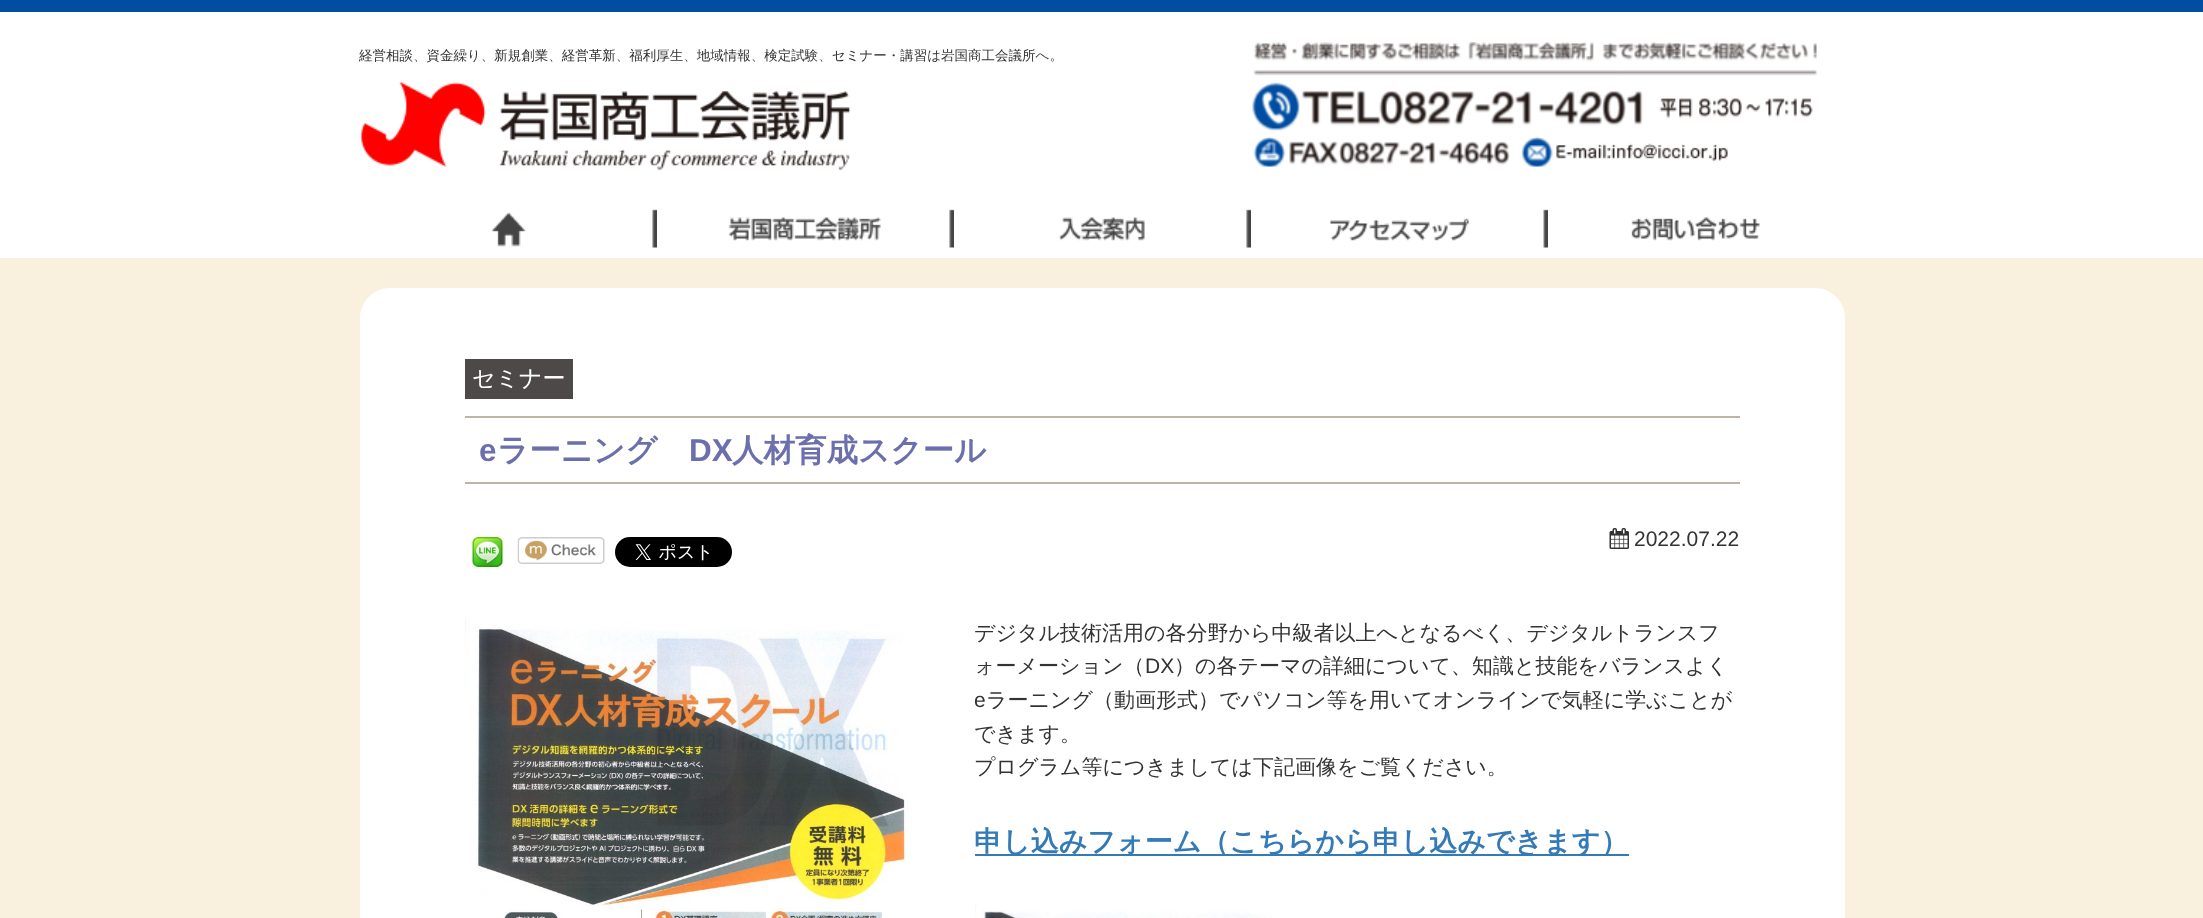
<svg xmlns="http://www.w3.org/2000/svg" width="2203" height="918">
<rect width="100%" height="100%" fill="#fff"/>
<rect width="2203" height="12" fill="#004da1"/>
<text x="359" y="60" style="font-family:WenQuanYi Zen Hei;font-size:13.5px;font-weight:500;fill:#333">経営相談、資金繰り、新規創業、経営革新、福利厚生、地域情報、検定試験、セミナー・講習は岩国商工会議所へ。</text>
<image x="361" y="82" width="490" height="88" href="media/1.png"/>
<image x="1252" y="42" width="565" height="125" href="media/2.png"/>
<image x="491" y="209" width="166" height="39" href="media/3.png"/>
<image x="728" y="209" width="226" height="39" href="media/4.png"/>
<image x="1059" y="209" width="192" height="39" href="media/5.png"/>
<image x="1330" y="209" width="218" height="39" href="media/6.png"/>
<image x="1631" y="217" width="129" height="24" href="media/7.png"/>
<rect y="258" width="2203" height="660" fill="#f9f0dd"/>
<rect x="360" y="288" width="1485" height="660" rx="30" fill="#fff"/>
<rect x="465" y="359" width="108" height="40" fill="#4c4948"/>
<text x="472" y="386" style="font-family:WenQuanYi Zen Hei;font-size:23px;font-weight:500;fill:#fff">セミナー</text>
<rect x="465" y="416" width="1275" height="2" fill="#bdb4a5"/>
<rect x="465" y="482" width="1275" height="2" fill="#bdb4a5"/>
<text x="479" y="461" style="font-family:Liberation Sans;font-size:31.5px;font-weight:bold;fill:#6b70ac">e</text>
<text x="497" y="461" style="font-family:WenQuanYi Zen Hei;font-size:31.5px;font-weight:bold;fill:#6b70ac">ラーニング</text>
<text x="689" y="461" style="font-family:Liberation Sans;font-size:31.5px;font-weight:bold;fill:#6b70ac">DX</text>
<text x="732" y="461" style="font-family:WenQuanYi Zen Hei;font-size:31.5px;font-weight:bold;fill:#6b70ac">人材育成スクール</text>
<image x="472" y="537" width="31" height="30" href="media/8.png"/>
<image x="517" y="537" width="88" height="27" href="media/9.png"/>
<image x="615" y="537" width="117" height="30" href="media/10.png"/>
<image x="1609" y="528" width="20" height="21" href="media/11.png"/>
<text x="1634" y="546" style="font-family:Liberation Sans;font-size:21px;fill:#333">2022.07.22</text>
<image x="465" y="617" width="443" height="301" href="media/12.png"/>
<text x="974" y="640" style="font-family:WenQuanYi Zen Hei;font-size:21px;font-weight:500;fill:#333">デジタル技術活用の各分野から中級者以上へとなるべく、デジタルトランスフ</text>
<text x="974" y="673" style="font-family:WenQuanYi Zen Hei;font-size:21px;font-weight:500;fill:#333">ォーメーション（</text>
<text x="1145" y="673" style="font-family:Liberation Sans;font-size:21px;fill:#333">DX</text>
<text x="1174" y="673" style="font-family:WenQuanYi Zen Hei;font-size:21px;font-weight:500;fill:#333">）の各テーマの詳細について、知識と技能をバランスよく</text>
<text x="974" y="707" style="font-family:Liberation Sans;font-size:21px;fill:#333">e</text>
<text x="986" y="707" style="font-family:WenQuanYi Zen Hei;font-size:21px;font-weight:500;fill:#333">ラーニング（動画形式）でパソコン等を用いてオンラインで気軽に学ぶことが</text>
<text x="974" y="741" style="font-family:WenQuanYi Zen Hei;font-size:21px;font-weight:500;fill:#333">できます。</text>
<text x="974" y="774" style="font-family:WenQuanYi Zen Hei;font-size:21px;font-weight:500;fill:#333">プログラム等につきましては下記画像をご覧ください。</text>
<rect x="975" y="854" width="654" height="2" fill="#337ab7"/>
<text x="974" y="851" style="font-family:WenQuanYi Zen Hei;font-size:28px;font-weight:bold;fill:#337ab7">申し込みフォーム（こちらから申し込みできます）</text>
<image x="975" y="904" width="297" height="14" href="media/13.png"/>
</svg>
